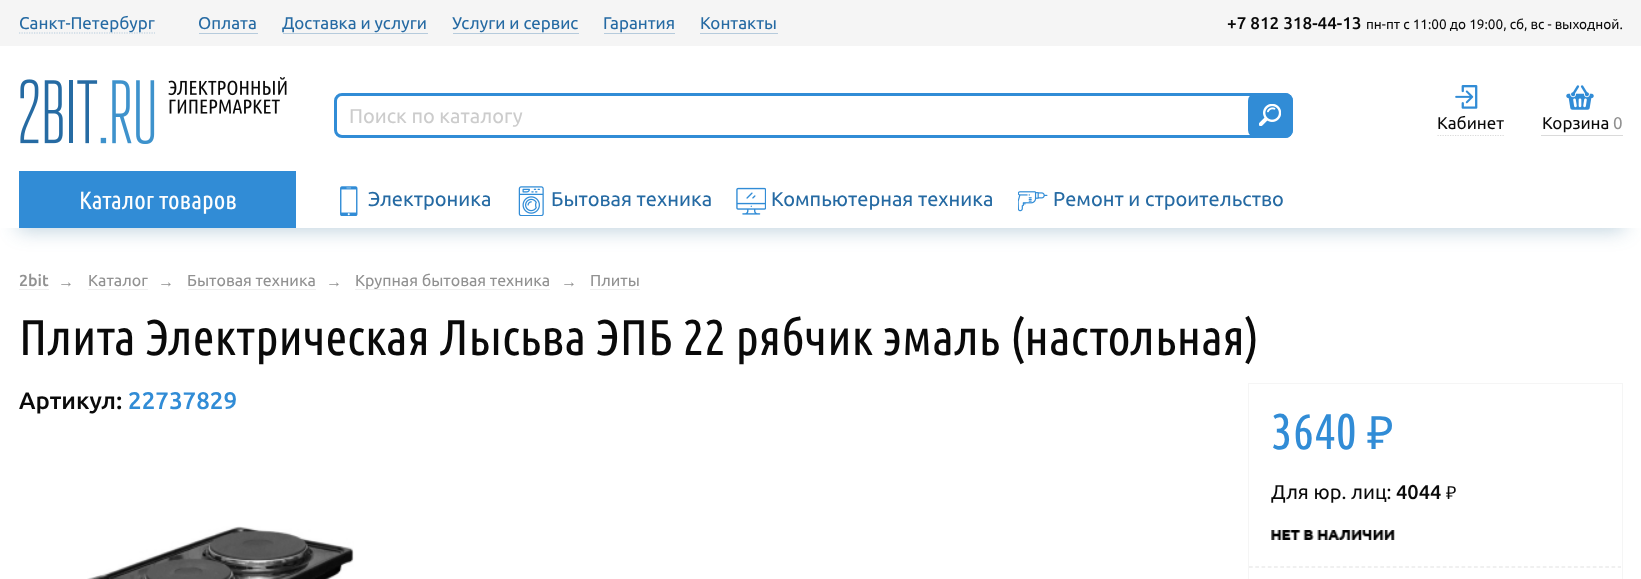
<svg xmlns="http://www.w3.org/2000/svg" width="1641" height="579">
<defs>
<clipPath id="clip1"><path d="M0 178h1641v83h-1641zm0-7h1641v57h-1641z" clip-rule="evenodd"/></clipPath>
</defs>
<rect width="100%" height="100%" fill="#fff"/>
<rect width="1641" height="46" fill="#f5f5f5"/>
<path d="M19 33h136" fill="none" stroke="#b6cbdc" stroke-width="1.2" stroke-dasharray="1.25 1.25"/>
<text x="19" y="29" style="font-family:Ubuntu;font-size:17px;fill:#256aa3">Санкт-Петербург</text>
<text x="198" y="29" style="font-family:Ubuntu;font-size:17px;fill:#256aa3">Оплата</text>
<rect x="199" y="33" width="59" height="1" fill="#b6cbdc"/>
<text x="282" y="29" style="font-family:Ubuntu;font-size:17px;fill:#256aa3">Доставка и услуги</text>
<rect x="283" y="33" width="145" height="1" fill="#b6cbdc"/>
<text x="452" y="29" style="font-family:Ubuntu;font-size:17px;fill:#256aa3">Услуги и сервис</text>
<rect x="453" y="33" width="126" height="1" fill="#b6cbdc"/>
<text x="603" y="29" style="font-family:Ubuntu;font-size:17px;fill:#256aa3">Гарантия</text>
<rect x="604" y="33" width="71" height="1" fill="#b6cbdc"/>
<text x="700" y="29" style="font-family:Ubuntu;font-size:17px;fill:#256aa3">Контакты</text>
<rect x="700" y="33" width="78" height="1" fill="#b6cbdc"/>
<text x="1227" y="29" style="font-family:Ubuntu;font-size:17px;font-weight:500;fill:#0a0a0a">+7 812 318-44-13</text>
<text x="1366" y="29" style="font-family:Ubuntu;font-size:13.6px;fill:#0a0a0a">пн-пт с 11:00 до 19:00, сб, вс - выходной.</text>
<image x="20" y="77" width="267" height="67" href="media/1.png"/>
<rect x="335.5" y="94.5" width="956" height="42" rx="6.5" fill="none" stroke="#318cd6" stroke-width="3"/>
<text x="349" y="123" style="font-family:Ubuntu;font-size:20px;fill:#ccc">Поиск по каталогу</text>
<rect x="1248" y="93" width="45" height="45" rx="8" fill="#318cd6"/>
<image x="1259" y="104" width="22" height="22" href="media/2.png"/>
<path d="M1437.5 135.5h66.5" fill="none" stroke="#dadada" stroke-width="1.2" stroke-dasharray="1.25 1.25"/>
<image x="1455" y="85" width="23" height="24" href="media/3.png"/>
<text x="1437" y="129" style="font-family:Ubuntu;font-size:17px;fill:#0a0a0a">Кабинет</text>
<rect x="1541" y="135" width="82" height="1" fill="#dadada"/>
<image x="1566" y="85" width="28" height="25" href="media/4.png"/>
<text x="1542" y="129" style="font-family:Ubuntu;font-size:17px;fill:#0a0a0a">Корзина</text>
<text x="1613" y="129" style="font-family:Ubuntu;font-size:17px;fill:#919191">0</text>
<g clip-path="url(#clip1)">
<rect x="18" y="209" width="1606" height="21" fill="#1d628c4d" filter="blur(10px)"/>
</g>
<rect x="19" y="171" width="277" height="57" fill="#318cd6"/>
<text x="79" y="209" style="font-family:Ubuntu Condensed;font-size:25px;fill:#fefefe">Каталог товаров</text>
<image x="340" y="186" width="18" height="30" href="media/5.png"/>
<text x="368" y="206" style="font-family:Ubuntu;font-size:20px;fill:#256aa3">Электроника</text>
<image x="518" y="186" width="26" height="30" href="media/6.png"/>
<text x="551" y="206" style="font-family:Ubuntu;font-size:20px;fill:#256aa3">Бытовая техника</text>
<image x="736" y="187" width="30" height="28" href="media/7.png"/>
<text x="771" y="206" style="font-family:Ubuntu;font-size:20px;fill:#256aa3">Компьютерная техника</text>
<image x="1018" y="191" width="30" height="21" href="media/8.png"/>
<text x="1053" y="206" style="font-family:Ubuntu;font-size:20px;fill:#256aa3">Ремонт и строительство</text>
<rect x="19" y="289" width="30" height="1" fill="#efefef"/>
<text x="19" y="286" style="font-family:Ubuntu;font-size:16px;font-weight:500;fill:#919191">2bit</text>
<text x="58" y="287" style="font-family:Liberation Sans;font-size:16px;fill:#919191">→</text>
<rect x="88" y="289" width="60" height="1" fill="#efefef"/>
<text x="88" y="286" style="font-family:Ubuntu;font-size:16px;fill:#919191">Каталог</text>
<text x="158" y="287" style="font-family:Liberation Sans;font-size:16px;fill:#919191">→</text>
<rect x="188" y="289" width="128" height="1" fill="#efefef"/>
<text x="187" y="286" style="font-family:Ubuntu;font-size:16px;fill:#919191">Бытовая техника</text>
<text x="326" y="287" style="font-family:Liberation Sans;font-size:16px;fill:#919191">→</text>
<rect x="355" y="289" width="195" height="1" fill="#efefef"/>
<text x="355" y="286" style="font-family:Ubuntu;font-size:16px;fill:#919191">Крупная бытовая техника</text>
<text x="561" y="287" style="font-family:Liberation Sans;font-size:16px;fill:#919191">→</text>
<text x="590" y="286" style="font-family:Ubuntu;font-size:16px;fill:#919191">Плиты</text>
<rect x="590" y="289" width="50" height="1" fill="#efefef"/>
<text x="19" y="355" style="font-family:Ubuntu Condensed;font-size:50px;fill:#0a0a0a">Плита Электрическая Лысьва ЭПБ 22 рябчик эмаль (настольная)</text>
<text x="19" y="409" style="font-family:Ubuntu;font-size:24px;font-weight:500;fill:#0a0a0a">Артикул:</text>
<text x="128" y="409" style="font-family:Ubuntu;font-size:24px;font-weight:500;fill:#318cd6">22737829</text>
<image x="87" y="526" width="267" height="53" href="media/9.png"/>
<rect x="1248.5" y="383.5" width="374" height="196" fill="none" stroke="#f5f5f5"/>
<text x="1271" y="449" style="font-family:Ubuntu Condensed;font-size:50px;fill:#318cd6">3640</text>
<text x="1367" y="449" style="font-family:Noto Sans;font-size:46px;fill:#318cd6">₽</text>
<text x="1271" y="499" style="font-family:Ubuntu;font-size:20px;fill:#0a0a0a">Для юр. лиц:</text>
<text x="1396" y="499" style="font-family:Ubuntu;font-size:20px;font-weight:500;fill:#0a0a0a">4044</text>
<text x="1446" y="499" style="font-family:Noto Sans;font-size:18px;fill:#0a0a0a">₽</text>
<image x="1271" y="530" width="124" height="10" href="media/10.png"/>
<path d="M1249 567h372" fill="none" stroke="#e2e2e2" stroke-width="1.2" stroke-dasharray="3.75 2.5"/>
</svg>
